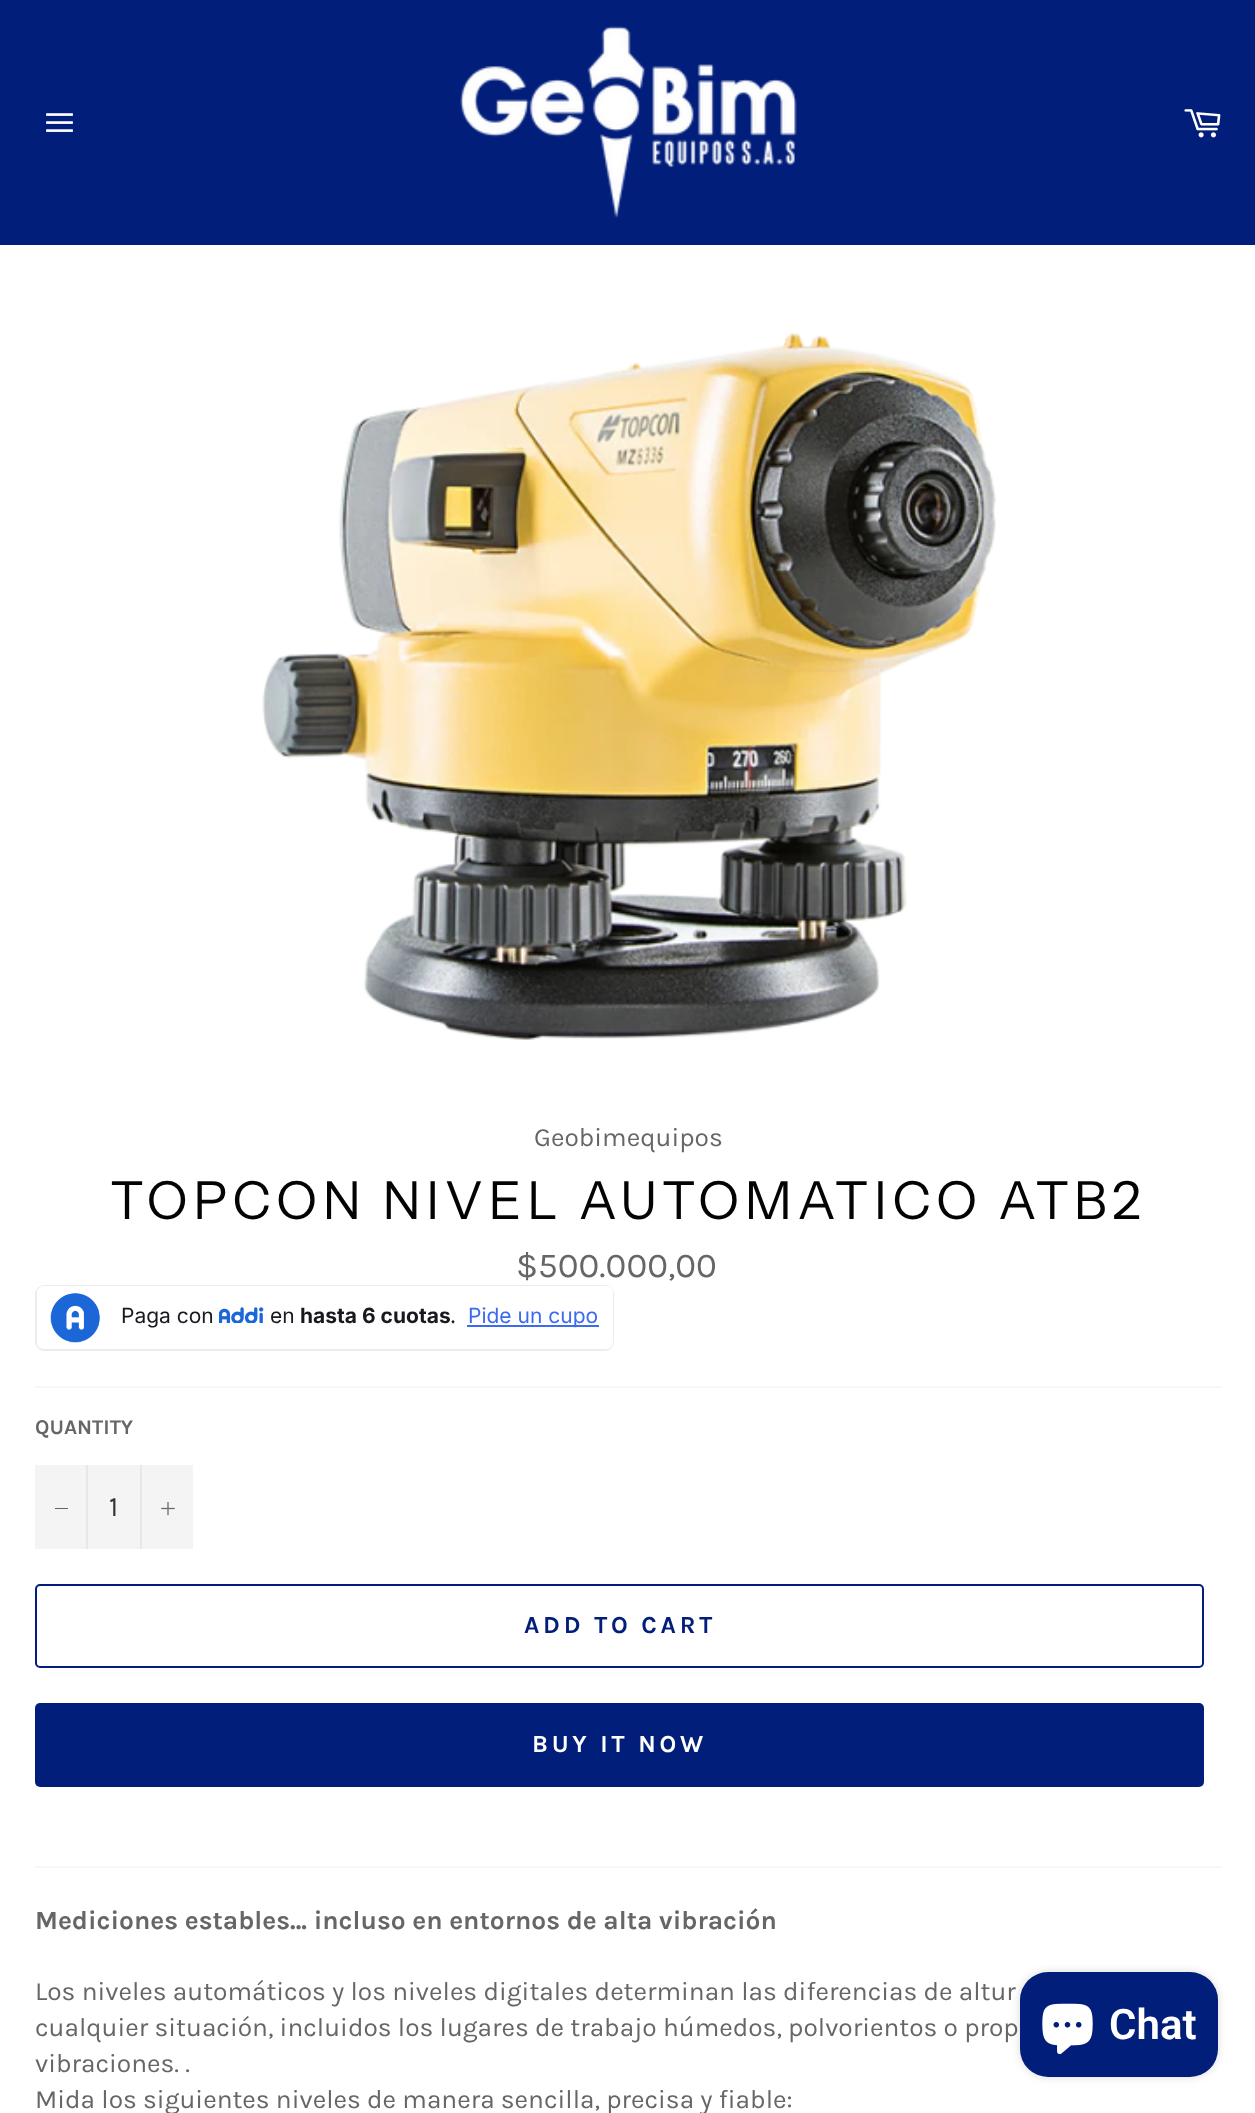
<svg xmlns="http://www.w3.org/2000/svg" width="1255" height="2113">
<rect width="100%" height="100%" fill="#021e7b"/>
<image x="46" y="113" width="27" height="19" href="media/1.png"/>
<image x="460" y="26" width="337" height="192" href="media/2.png"/>
<image x="1184" y="109" width="37" height="29" href="media/3.png"/>
<rect y="245" width="1255" height="1868" fill="#fff"/>
<image x="262" y="332" width="734" height="708" href="media/4.png"/>
<text x="534" y="1146" style="font-family:Karla;font-size:26.25px;fill:#666">Geobimequipos</text>
<text x="110" y="1219" style="font-family:Instrument Sans;font-size:52.5px;letter-spacing:5.25px;fill:#030303">TOPCON NIVEL AUTOMATICO ATB2</text>
<text x="516" y="1277" style="font-family:Karla;font-size:35px;fill:#666">$500.000,00</text>
<rect x="36" y="1286" width="577" height="64" rx="8" fill="none" stroke="#ebeced" stroke-width="2"/>
<path d="M44 1286h70v63h-70c-4 0-7-3-7-7v-49c0-4 3-7 7-7z" fill="#fff"/>
<image x="50" y="1293" width="50" height="50" href="media/5.png"/>
<path d="M114 1286h492c4 0 7 3 7 7v49c0 4-3 7-7 7h-492z" fill="#fff"/>
<text x="121" y="1323" style="font-family:Inter;font-size:21px;fill:#18181f">Paga con</text>
<image x="219" y="1307" width="45" height="16" href="media/6.png"/>
<text x="270" y="1323" style="font-family:Inter;font-size:21px;fill:#18181f">en</text>
<text x="300" y="1323" style="font-family:Inter;font-size:21px;font-weight:bold;fill:#18181f">hasta 6 cuotas</text>
<text x="450" y="1323" style="font-family:Inter;font-size:21px;fill:#18181f">.</text>
<rect x="467" y="1325" width="132" height="2" fill="#3c6af0"/>
<text x="468" y="1323" style="font-family:Inter;font-size:21px;fill:#3c6af0">Pide un cupo</text>
<rect x="35" y="1386" width="1187" height="2" fill="#f7f7f7"/>
<text x="35" y="1434" style="font-family:Karla;font-size:21px;font-weight:bold;fill:#666">QUANTITY</text>
<rect x="35" y="1465" width="158" height="84" fill="#f4f4f4"/>
<rect x="86" y="1465" width="2" height="84" fill="#e7e7e7"/>
<rect x="55" y="1508" width="13" height="1" fill="#666"/>
<text x="109" y="1516" style="font-family:Karla;font-size:28px;fill:#333">1</text>
<rect x="140" y="1465" width="2" height="84" fill="#e7e7e7"/>
<image x="161" y="1502" width="14" height="14" href="media/7.png"/>
<rect x="36" y="1585" width="1167" height="82" rx="4" fill="none" stroke="#021e7b" stroke-width="2"/>
<text x="524" y="1633" style="font-family:Karla;font-size:24.5px;font-weight:bold;letter-spacing:3.75px;fill:#021e7b">ADD TO CART</text>
<rect x="35" y="1703" width="1169" height="84" rx="5" fill="#021e7b"/>
<text x="532" y="1752" style="font-family:Karla;font-size:24.5px;font-weight:bold;letter-spacing:3.75px;fill:#fff">BUY IT NOW</text>
<rect x="35" y="1866" width="1187" height="2" fill="#f7f7f7"/>
<text x="35" y="1929" style="font-family:Karla;font-size:26.25px;font-weight:bold;fill:#666">Mediciones estables... incluso en entornos de alta vibración</text>
<text x="35" y="2000" style="font-family:Karla;font-size:26.25px;fill:#666">Los niveles automáticos y los niveles digitales determinan las diferencias de altur</text>
<text x="35" y="2036" style="font-family:Karla;font-size:26.25px;fill:#666">cualquier situación, incluidos los lugares de trabajo húmedos, polvorientos o prop</text>
<text x="35" y="2072" style="font-family:Karla;font-size:26.25px;fill:#666">vibraciones. .</text>
<text x="35" y="2108" style="font-family:Karla;font-size:26.25px;fill:#666">Mida los siguientes niveles de manera sencilla, precisa y fiable:</text>
<rect x="1020" y="1972" width="198" height="105" rx="28" fill="#00000026" filter="blur(4.5px)"/>
<rect x="1020" y="1972" width="198" height="105" rx="28" fill="#021e7b"/>
<image x="1042" y="2003" width="51" height="52" href="media/8.png"/>
<text x="1109" y="2039" style="font-family:Roboto;font-size:42px;font-weight:600;fill:#fff">Chat</text>
</svg>
